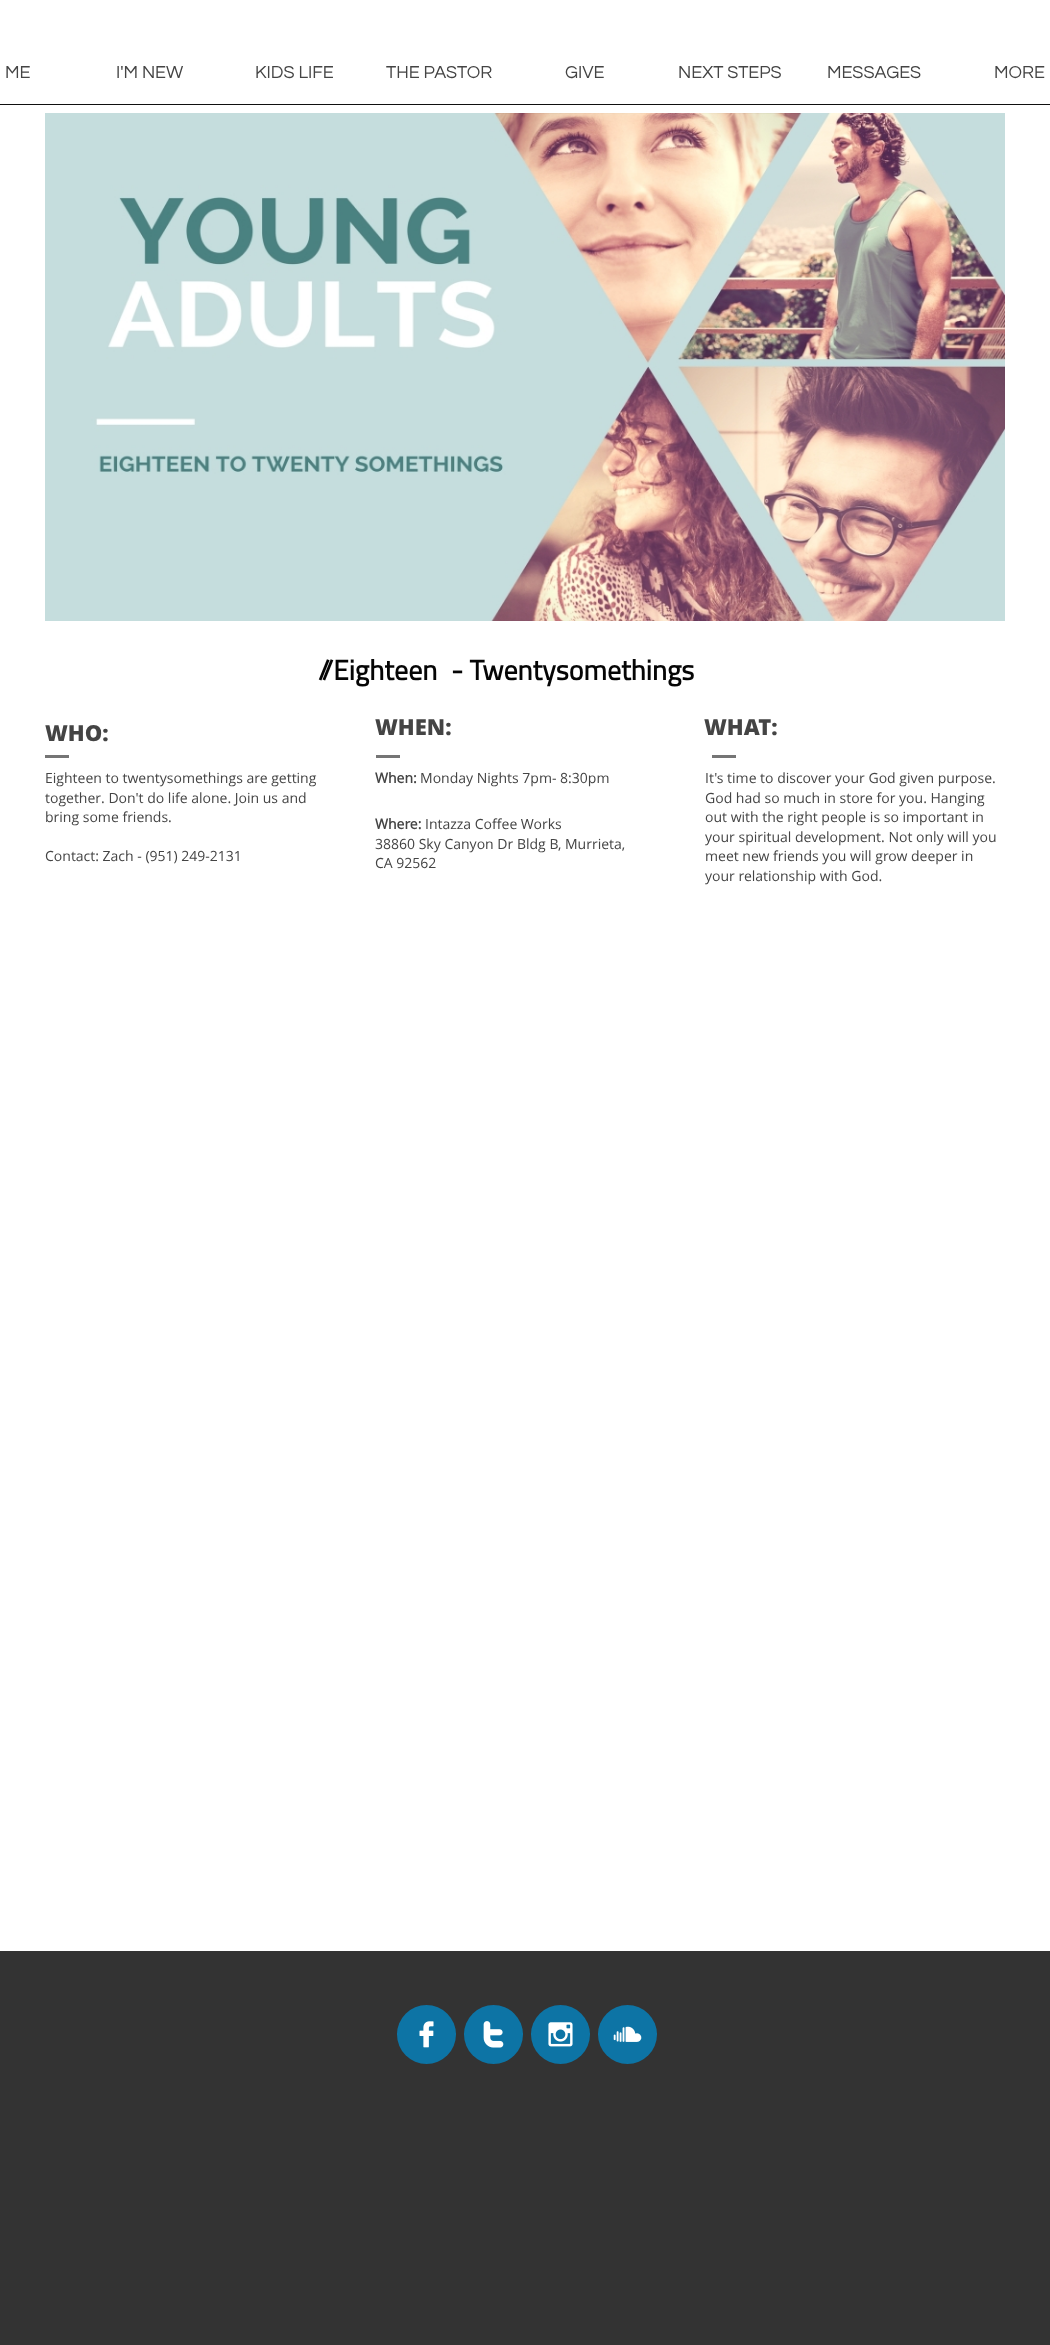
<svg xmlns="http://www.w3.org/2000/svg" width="1050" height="2345">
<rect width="100%" height="100%" fill="#fff"/>
<rect y="104" width="1050" height="1" fill="#0f0f0f"/>
<text x="5" y="78" style="font-family:Questrial;font-size:18px;fill:#444">ME</text>
<text x="116" y="78" style="font-family:Questrial;font-size:18px;fill:#444">I'M NEW</text>
<text x="255" y="78" style="font-family:Questrial;font-size:18px;fill:#444">KIDS LIFE</text>
<text x="386" y="78" style="font-family:Questrial;font-size:18px;fill:#444">THE PASTOR</text>
<text x="565" y="78" style="font-family:Questrial;font-size:18px;fill:#444">GIVE</text>
<text x="678" y="78" style="font-family:Questrial;font-size:18px;fill:#444">NEXT STEPS</text>
<text x="827" y="78" style="font-family:Questrial;font-size:18px;fill:#444">MESSAGES</text>
<text x="994" y="78" style="font-family:Questrial;font-size:18px;fill:#444">MORE</text>
<image x="45" y="113" width="960" height="508" href="media/1.png"/>
<text x="318" y="680" style="font-family:Titillium Web;font-size:28px;font-weight:bold;fill:#050505">//Eighteen</text>
<text x="451" y="680" style="font-family:Titillium Web;font-size:28px;font-weight:bold;fill:#050505">- Twentysomethings</text>
<text x="45" y="741" style="font-family:Open Sans;font-size:22px;font-weight:800;fill:#444">WHO:</text>
<text x="375" y="735" style="font-family:Open Sans;font-size:22px;font-weight:800;fill:#444">WHEN:</text>
<text x="704" y="735" style="font-family:Open Sans;font-size:22px;font-weight:800;fill:#444">WHAT:</text>
<rect x="45" y="755" width="24" height="3" fill="#757575"/>
<rect x="376" y="755" width="24" height="3" fill="#757575"/>
<rect x="712" y="755" width="24" height="3" fill="#757575"/>
<text x="45" y="783" style="font-family:Open Sans;font-size:14px;fill:#444">Eighteen to twentysomethings are getting</text>
<text x="45" y="803" style="font-family:Open Sans;font-size:14px;fill:#444">together. Don't do life alone. Join us and</text>
<text x="45" y="822" style="font-family:Open Sans;font-size:14px;fill:#444">bring some friends.</text>
<text x="45" y="861" style="font-family:Open Sans;font-size:14px;fill:#444">Contact: Zach - (951) 249-2131</text>
<text x="375" y="783" style="font-family:Open Sans;font-size:14px;font-weight:bold;fill:#444">When:</text>
<text x="420" y="783" style="font-family:Open Sans;font-size:14px;fill:#444">Monday Nights 7pm- 8:30pm</text>
<text x="375" y="829" style="font-family:Open Sans;font-size:14px;font-weight:bold;fill:#444">Where:</text>
<text x="425" y="829" style="font-family:Open Sans;font-size:14px;fill:#444">Intazza Coffee Works</text>
<text x="375" y="849" style="font-family:Open Sans;font-size:14px;fill:#444">38860 Sky Canyon Dr Bldg B, Murrieta,</text>
<text x="375" y="868" style="font-family:Open Sans;font-size:14px;fill:#444">CA 92562</text>
<text x="705" y="783" style="font-family:Open Sans;font-size:14px;fill:#444">It's time to discover your God given purpose.</text>
<text x="705" y="803" style="font-family:Open Sans;font-size:14px;fill:#444">God had so much in store for you. Hanging</text>
<text x="705" y="822" style="font-family:Open Sans;font-size:14px;fill:#444">out with the right people is so important in</text>
<text x="705" y="842" style="font-family:Open Sans;font-size:14px;fill:#444">your spiritual development. Not only will you</text>
<text x="705" y="861" style="font-family:Open Sans;font-size:14px;fill:#444">meet new friends you will grow deeper in</text>
<text x="705" y="881" style="font-family:Open Sans;font-size:14px;fill:#444">your relationship with God.</text>
<rect y="1951" width="1050" height="394" fill="#333"/>
<circle cx="426.5" cy="2034.5" r="29.5" fill="#0d74a5"/>
<image x="419" y="2021" width="15" height="27" href="media/2.png"/>
<circle cx="493.5" cy="2034.5" r="29.5" fill="#0d74a5"/>
<image x="483" y="2021" width="21" height="27" href="media/3.png"/>
<circle cx="560.5" cy="2034.5" r="29.5" fill="#0d74a5"/>
<image x="548" y="2022" width="25" height="25" href="media/4.png"/>
<circle cx="627.5" cy="2034.5" r="29.5" fill="#0d74a5"/>
<image x="613" y="2026" width="29" height="16" href="media/5.png"/>
</svg>
